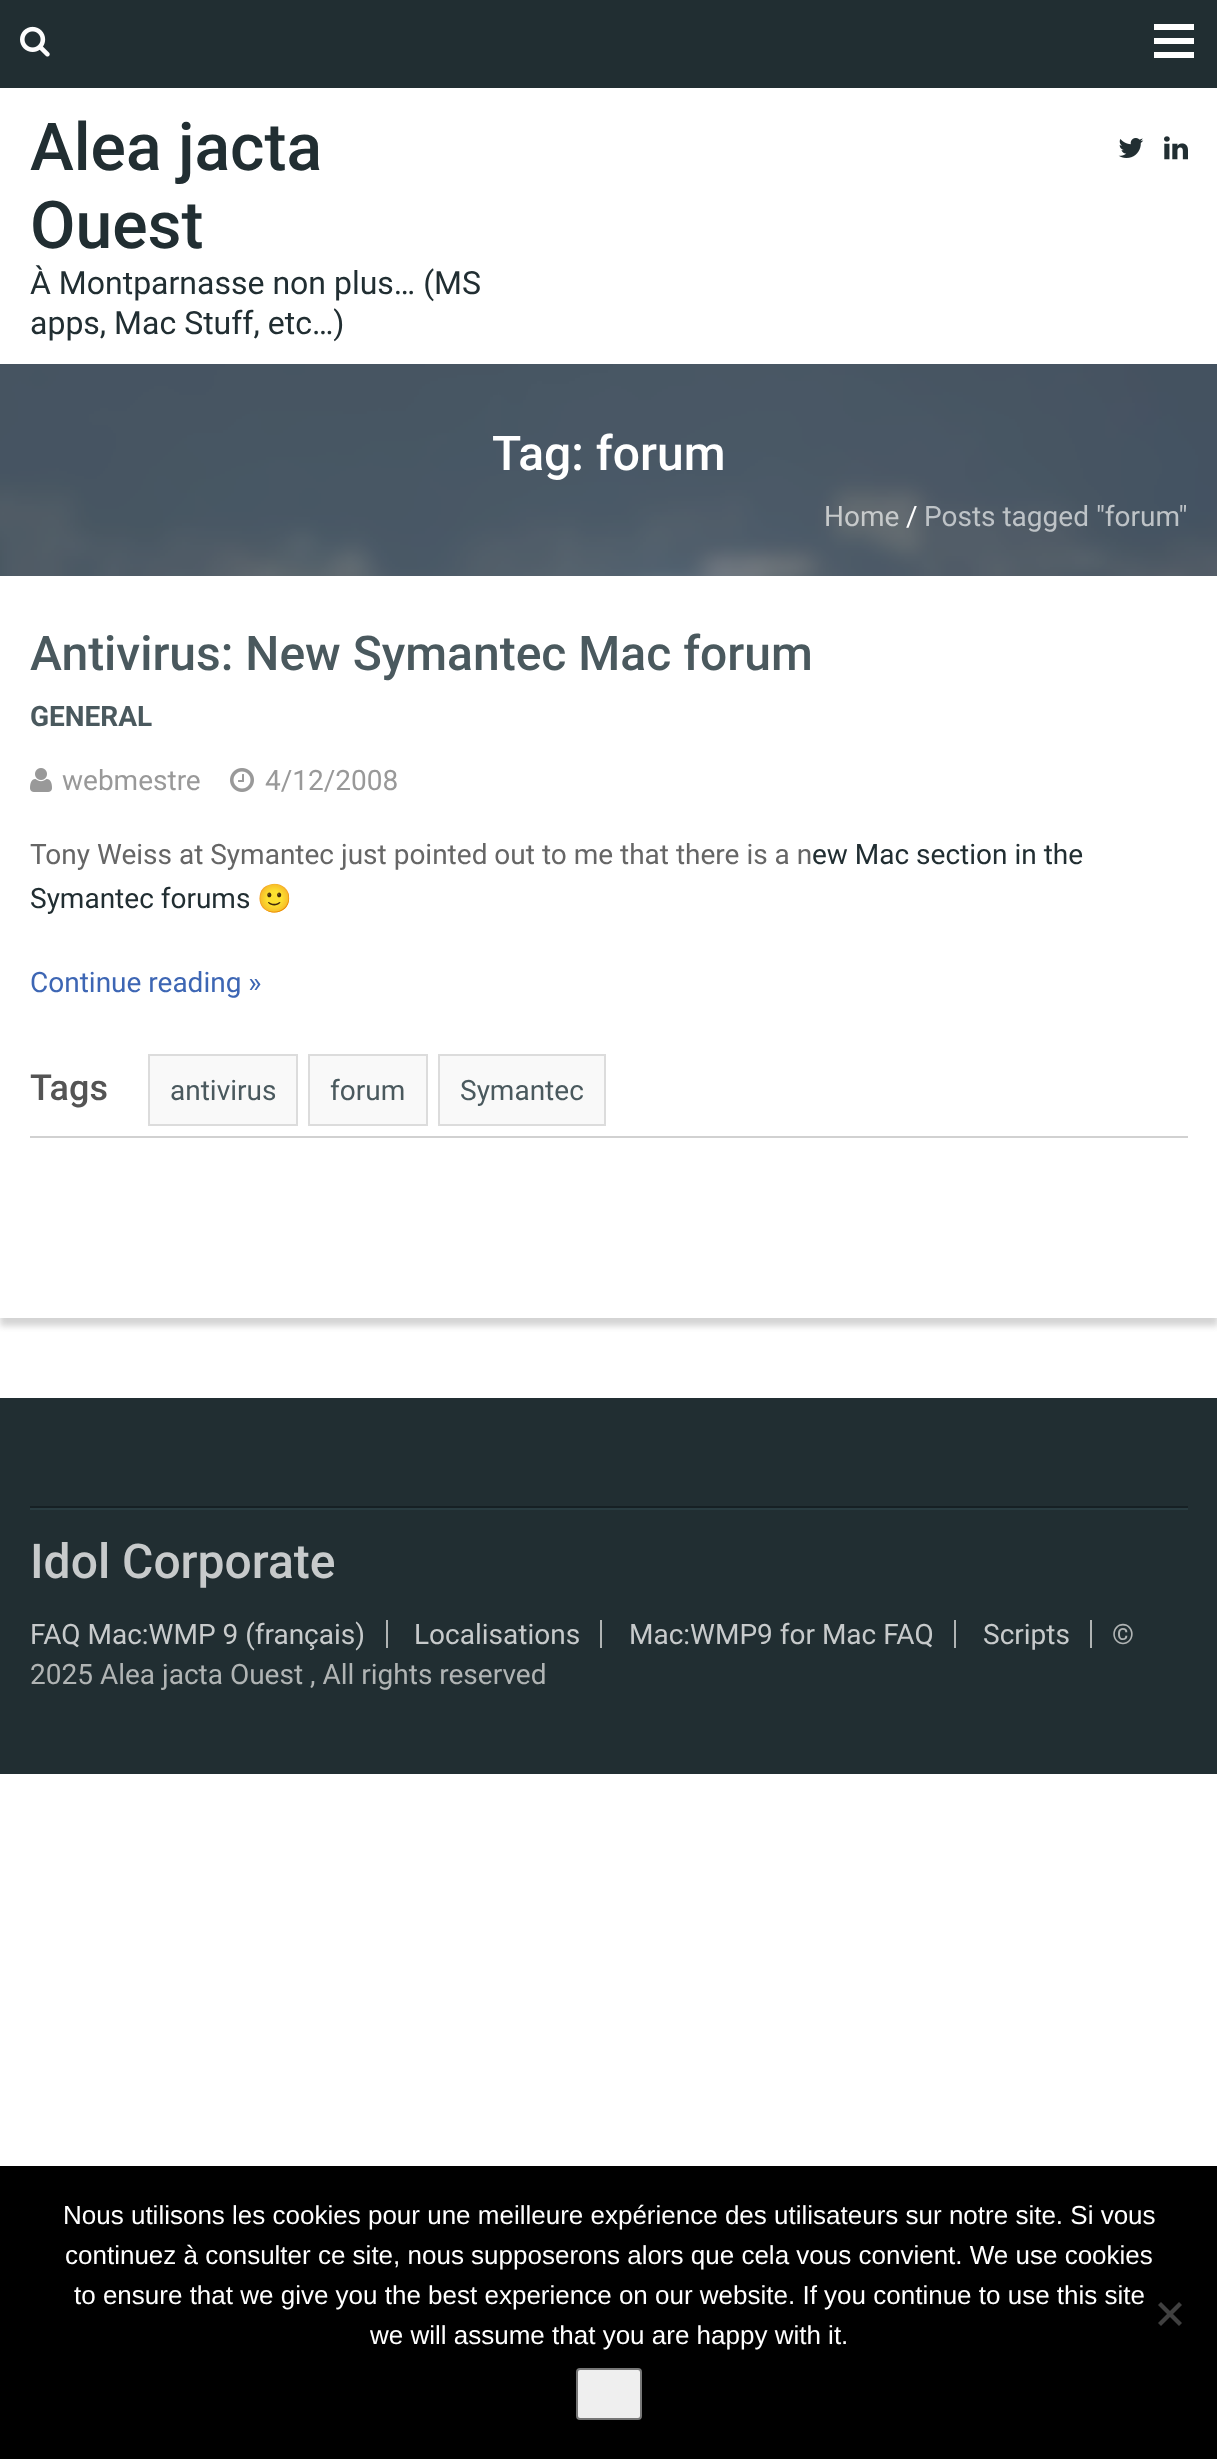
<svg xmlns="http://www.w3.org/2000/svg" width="1217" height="2459">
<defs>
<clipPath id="clip1"><rect x="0" y="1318" width="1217" height="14"/></clipPath>
</defs>
<rect width="100%" height="100%" fill="#fff"/>
<rect width="1217" height="88" fill="#212e32"/>
<rect x="1154" y="24" width="40" height="6" fill="#fff"/>
<rect x="1154" y="38" width="40" height="6" fill="#fff"/>
<rect x="1154" y="52" width="40" height="6" fill="#fff"/>
<image x="20" y="26" width="30" height="31" href="media/1.png"/>
<text x="30" y="170" style="font-family:Roboto;font-size:66px;font-weight:500;fill:#212e32">Alea jacta</text>
<text x="30" y="248" style="font-family:Roboto;font-size:66px;font-weight:500;fill:#212e32">Ouest</text>
<text x="30" y="294" style="font-family:Roboto;font-size:32px;fill:#212e32">À Montparnasse non plus… (MS</text>
<text x="30" y="334" style="font-family:Roboto;font-size:32px;fill:#212e32">apps, Mac Stuff, etc…)</text>
<image x="1118" y="138" width="26" height="20" href="media/2.png"/>
<image x="1164" y="136" width="24" height="24" href="media/3.png"/>
<image x="0" y="364" width="1217" height="212" href="media/4.png"/>
<text x="492" y="470" style="font-family:Roboto;font-size:48px;font-weight:500;fill:#fff">Tag: forum</text>
<text x="824" y="526" style="font-family:Roboto;font-size:28px;fill:#c7cacb">Home</text>
<text x="906" y="526" style="font-family:Roboto;font-size:28px;fill:#fff">/</text>
<text x="924" y="526" style="font-family:Roboto;font-size:28px;fill:#bec3c7">Posts tagged "forum"</text>
<g clip-path="url(#clip1)">
<rect y="584" width="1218" height="742" fill="#d4d4d4" filter="blur(3px)"/>
</g>
<text x="30" y="670" style="font-family:Roboto;font-size:48px;font-weight:500;fill:#4a595e">Antivirus: New Symantec Mac forum</text>
<text x="30" y="726" style="font-family:Roboto;font-size:28px;font-weight:bold;fill:#4a595e">GENERAL</text>
<image x="30" y="768" width="22" height="24" href="media/5.png"/>
<text x="62" y="790" style="font-family:Roboto;font-size:28px;fill:#999">webmestre</text>
<image x="230" y="768" width="24" height="24" href="media/6.png"/>
<text x="265" y="790" style="font-family:Roboto;font-size:28px;fill:#999">4/12/2008</text>
<text x="30" y="864" style="font-family:Roboto;font-size:28px;fill:#666">Tony Weiss at Symantec just pointed out to me that there is a n</text>
<text x="812" y="864" style="font-family:Roboto;font-size:28px;fill:#212e32">ew Mac section in the</text>
<text x="30" y="908" style="font-family:Roboto;font-size:28px;fill:#212e32">Symantec forums</text>
<text x="257" y="908" style="font-family:Noto Color Emoji;font-size:28px;fill:#666">🙂</text>
<text x="30" y="992" style="font-family:Roboto;font-size:28px;fill:#3d66b4">Continue reading »</text>
<rect x="30" y="1136" width="1158" height="2" fill="#d1d1d1"/>
<text x="30" y="1100" style="font-family:Roboto;font-size:36px;font-weight:500;fill:#545454">Tags</text>
<rect x="149" y="1055" width="148" height="70" fill="#f9f9f9" stroke="#dcdcdc" stroke-width="2"/>
<text x="170" y="1100" style="font-family:Roboto;font-size:28px;fill:#4a595e">antivirus</text>
<rect x="309" y="1055" width="118" height="70" fill="#f9f9f9" stroke="#dcdcdc" stroke-width="2"/>
<text x="330" y="1100" style="font-family:Roboto;font-size:28px;fill:#4a595e">forum</text>
<rect x="439" y="1055" width="166" height="70" fill="#f9f9f9" stroke="#dcdcdc" stroke-width="2"/>
<text x="460" y="1100" style="font-family:Roboto;font-size:28px;fill:#4a595e">Symantec</text>
<rect y="1398" width="1217" height="376" fill="#212e32"/>
<rect x="30" y="1506" width="1158" height="2" fill="#162024"/>
<rect x="30" y="1508" width="1158" height="2" fill="#293c41"/>
<text x="30" y="1578" style="font-family:Roboto;font-size:48px;font-weight:500;fill:#c7cacb">Idol Corporate</text>
<rect x="386" y="1620" width="2" height="28" fill="#b0b4b4"/>
<text x="30" y="1644" style="font-family:Roboto;font-size:28px;fill:#c7cacb">FAQ Mac:WMP 9 (français)</text>
<rect x="600" y="1620" width="2" height="28" fill="#b0b4b4"/>
<text x="414" y="1644" style="font-family:Roboto;font-size:28px;fill:#c7cacb">Localisations</text>
<rect x="954" y="1620" width="2" height="28" fill="#b0b4b4"/>
<text x="629" y="1644" style="font-family:Roboto;font-size:28px;fill:#c7cacb">Mac:WMP9 for Mac FAQ</text>
<rect x="1090" y="1620" width="2" height="28" fill="#b0b4b4"/>
<text x="983" y="1644" style="font-family:Roboto;font-size:28px;fill:#c7cacb">Scripts</text>
<text x="1112" y="1644" style="font-family:Roboto;font-size:28px;fill:#b0b4b4">©</text>
<text x="30" y="1684" style="font-family:Roboto;font-size:28px;fill:#b0b4b4">2025 Alea jacta Ouest , All rights reserved</text>
<rect y="2166" width="1217" height="293" fill="#000"/>
<text x="63" y="2224" style="font-family:Liberation Sans;font-size:26px;fill:#fff">Nous utilisons les cookies pour une meilleure expérience des utilisateurs sur notre site. Si vous</text>
<text x="65" y="2264" style="font-family:Liberation Sans;font-size:26px;fill:#fff">continuez à consulter ce site, nous supposerons alors que cela vous convient. We use cookies</text>
<text x="74" y="2304" style="font-family:Liberation Sans;font-size:26px;fill:#fff">to ensure that we give you the best experience on our website. If you continue to use this site</text>
<text x="370" y="2344" style="font-family:Liberation Sans;font-size:26px;fill:#fff">we will assume that you are happy with it.</text>
<path d="M1179 2302l3 3l-21 21l-3-3z" fill="#404040"/>
<path d="M1158 2305l3-3l21 21l-3 3z" fill="#404040"/>
<rect x="577" y="2369" width="64" height="50" rx="3" fill="#efefef" stroke="#767676" stroke-width="2"/>
</svg>
